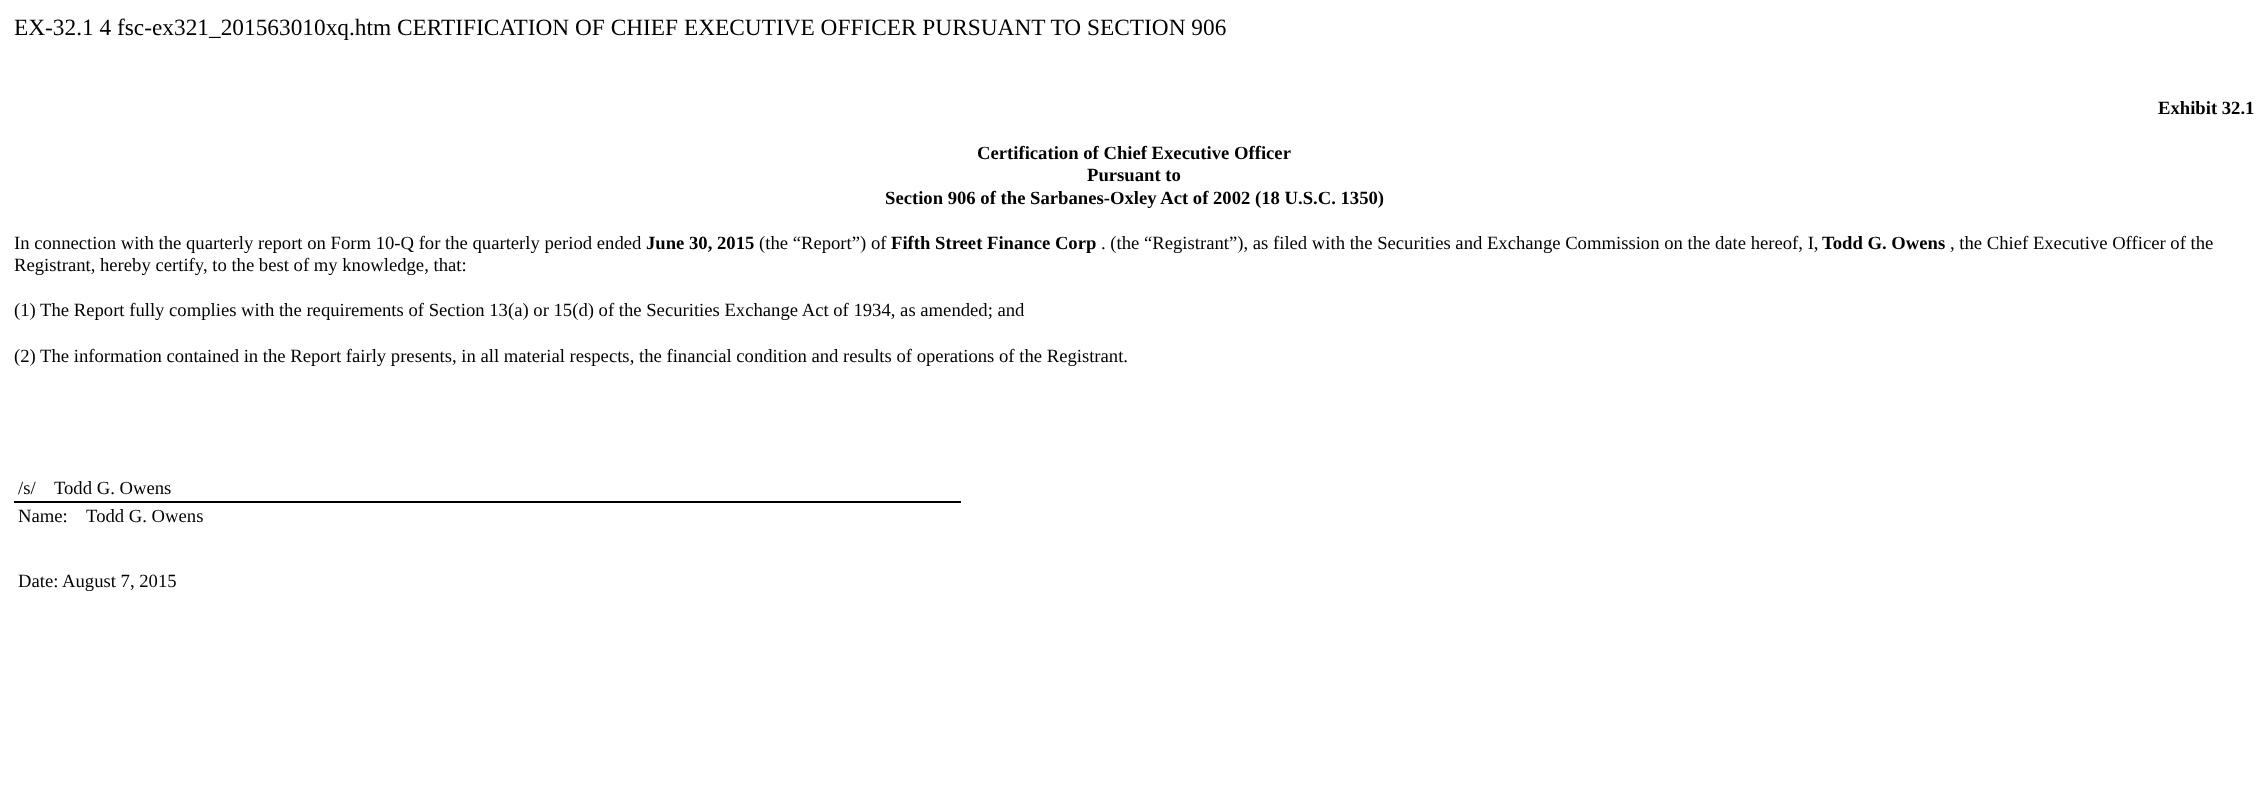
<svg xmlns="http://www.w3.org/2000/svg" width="2268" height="809">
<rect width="100%" height="100%" fill="#fff"/>
<text x="14" y="35" style="font-family:Liberation Serif;font-size:23.33px;fill:#000">EX-32.1 4 fsc-ex321_201563010xq.htm CERTIFICATION OF CHIEF EXECUTIVE OFFICER PURSUANT TO SECTION 906</text>
<text x="2158" y="114" style="font-family:Liberation Serif;font-size:18.67px;font-weight:bold;fill:#000">Exhibit 32.1</text>
<text x="977" y="159" style="font-family:Liberation Serif;font-size:18.67px;font-weight:bold;fill:#000">Certification of Chief Executive Officer</text>
<text x="1087" y="181" style="font-family:Liberation Serif;font-size:18.67px;font-weight:bold;fill:#000">Pursuant to</text>
<text x="885" y="204" style="font-family:Liberation Serif;font-size:18.67px;font-weight:bold;fill:#000">Section 906 of the Sarbanes-Oxley Act of 2002 (18 U.S.C. 1350)</text>
<text x="14" y="249" style="font-family:Liberation Serif;font-size:18.67px;fill:#000">In connection with the quarterly report on Form 10-Q for the quarterly period ended</text>
<text x="646" y="249" style="font-family:Liberation Serif;font-size:18.67px;font-weight:bold;fill:#000">June 30, 2015</text>
<text x="759" y="249" style="font-family:Liberation Serif;font-size:18.67px;fill:#000">(the “Report”) of</text>
<text x="891" y="249" style="font-family:Liberation Serif;font-size:18.67px;font-weight:bold;fill:#000">Fifth Street Finance Corp</text>
<text x="1101" y="249" style="font-family:Liberation Serif;font-size:18.67px;fill:#000">. (the “Registrant”), as filed with the Securities and Exchange Commission on the date hereof, I,</text>
<text x="1822" y="249" style="font-family:Liberation Serif;font-size:18.67px;font-weight:bold;fill:#000">Todd G. Owens</text>
<text x="1950" y="249" style="font-family:Liberation Serif;font-size:18.67px;fill:#000">, the Chief Executive Officer of the</text>
<text x="14" y="271" style="font-family:Liberation Serif;font-size:18.67px;fill:#000">Registrant, hereby certify, to the best of my knowledge, that:</text>
<text x="14" y="316" style="font-family:Liberation Serif;font-size:18.67px;fill:#000">(1) The Report fully complies with the requirements of Section 13(a) or 15(d) of the Securities Exchange Act of 1934, as amended; and</text>
<text x="14" y="362" style="font-family:Liberation Serif;font-size:18.67px;fill:#000">(2) The information contained in the Report fairly presents, in all material respects, the financial condition and results of operations of the Registrant.</text>
<rect x="14" y="501" width="947" height="2" fill="#000"/>
<text x="18" y="494" style="font-family:Liberation Serif;font-size:18.67px;fill:#000" xml:space="preserve">/s/    Todd G. Owens</text>
<text x="18" y="522" style="font-family:Liberation Serif;font-size:18.67px;fill:#000" xml:space="preserve">Name:    Todd G. Owens</text>
<text x="18" y="587" style="font-family:Liberation Serif;font-size:18.67px;fill:#000">Date: August 7, 2015</text>
</svg>
